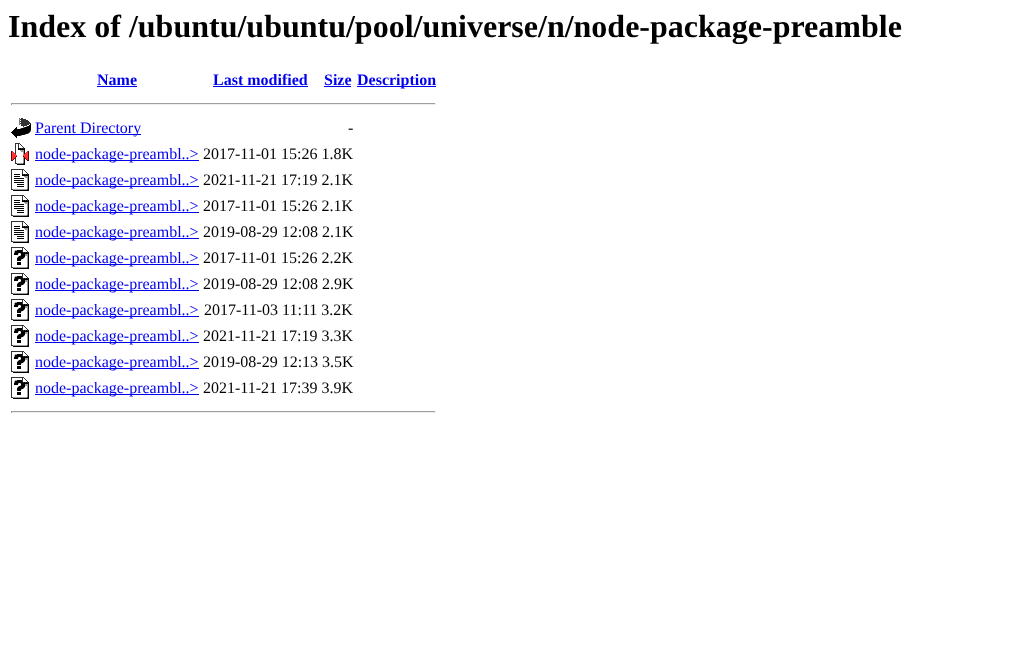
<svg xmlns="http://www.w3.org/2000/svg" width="1031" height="664">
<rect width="100%" height="100%" fill="#fff"/>
<text x="8" y="37" style="font-family:Liberation Serif;font-size:32px;font-weight:bold;fill:#000">Index of /ubuntu/ubuntu/pool/universe/n/node-package-preamble</text>
<text x="97" y="85" style="font-family:Liberation Serif;font-size:16px;font-weight:bold;fill:#00e">Name</text>
<rect x="97" y="86" width="40" height="1" fill="#00e"/>
<text x="213" y="85" style="font-family:Liberation Serif;font-size:16px;font-weight:bold;fill:#00e">Last modified</text>
<rect x="213" y="86" width="95" height="1" fill="#00e"/>
<text x="324" y="85" style="font-family:Liberation Serif;font-size:16px;font-weight:bold;fill:#00e">Size</text>
<rect x="324" y="86" width="27" height="1" fill="#00e"/>
<rect x="357" y="86" width="79" height="1" fill="#00e"/>
<text x="357" y="85" style="font-family:Liberation Serif;font-size:16px;font-weight:bold;fill:#00e">Description</text>
<rect x="11" y="103" width="425" height="1" fill="#9f9f9f"/>
<rect x="435" y="103" width="1" height="2" fill="#eee"/>
<rect x="11" y="104" width="425" height="1" fill="#eee"/>
<rect x="11" y="103" width="1" height="2" fill="#9f9f9f"/>
<image x="11" y="118" width="20" height="20" href="media/1.png"/>
<rect x="35" y="134" width="106" height="1" fill="#00e"/>
<text x="35" y="133" style="font-family:Liberation Serif;font-size:16px;fill:#00e">Parent Directory</text>
<text x="348" y="133" style="font-family:Liberation Serif;font-size:16px;fill:#000">-</text>
<image x="11" y="143" width="18" height="22" href="media/2.png"/>
<rect x="35" y="160" width="164" height="1" fill="#00e"/>
<text x="35" y="159" style="font-family:Liberation Serif;font-size:16px;fill:#00e">node-package-preambl..&gt;</text>
<text x="203" y="159" style="font-family:Liberation Serif;font-size:16px;fill:#000">2017-11-01 15:26 1.8K</text>
<image x="11" y="169" width="18" height="22" href="media/3.png"/>
<rect x="35" y="186" width="164" height="1" fill="#00e"/>
<text x="35" y="185" style="font-family:Liberation Serif;font-size:16px;fill:#00e">node-package-preambl..&gt;</text>
<text x="203" y="185" style="font-family:Liberation Serif;font-size:16px;fill:#000">2021-11-21 17:19 2.1K</text>
<image x="11" y="195" width="18" height="22" href="media/3.png"/>
<rect x="35" y="212" width="164" height="1" fill="#00e"/>
<text x="35" y="211" style="font-family:Liberation Serif;font-size:16px;fill:#00e">node-package-preambl..&gt;</text>
<text x="203" y="211" style="font-family:Liberation Serif;font-size:16px;fill:#000">2017-11-01 15:26 2.1K</text>
<image x="11" y="221" width="18" height="22" href="media/3.png"/>
<rect x="35" y="238" width="164" height="1" fill="#00e"/>
<text x="35" y="237" style="font-family:Liberation Serif;font-size:16px;fill:#00e">node-package-preambl..&gt;</text>
<text x="203" y="237" style="font-family:Liberation Serif;font-size:16px;fill:#000">2019-08-29 12:08 2.1K</text>
<image x="11" y="247" width="18" height="22" href="media/4.png"/>
<rect x="35" y="264" width="164" height="1" fill="#00e"/>
<text x="35" y="263" style="font-family:Liberation Serif;font-size:16px;fill:#00e">node-package-preambl..&gt;</text>
<text x="203" y="263" style="font-family:Liberation Serif;font-size:16px;fill:#000">2017-11-01 15:26 2.2K</text>
<image x="11" y="273" width="18" height="22" href="media/4.png"/>
<rect x="35" y="290" width="164" height="1" fill="#00e"/>
<text x="35" y="289" style="font-family:Liberation Serif;font-size:16px;fill:#00e">node-package-preambl..&gt;</text>
<text x="203" y="289" style="font-family:Liberation Serif;font-size:16px;fill:#000">2019-08-29 12:08 2.9K</text>
<image x="11" y="299" width="18" height="22" href="media/4.png"/>
<rect x="35" y="316" width="164" height="1" fill="#00e"/>
<text x="35" y="315" style="font-family:Liberation Serif;font-size:16px;fill:#00e">node-package-preambl..&gt;</text>
<text x="204" y="315" style="font-family:Liberation Serif;font-size:16px;fill:#000">2017-11-03 11:11 3.2K</text>
<image x="11" y="325" width="18" height="22" href="media/4.png"/>
<rect x="35" y="342" width="164" height="1" fill="#00e"/>
<text x="35" y="341" style="font-family:Liberation Serif;font-size:16px;fill:#00e">node-package-preambl..&gt;</text>
<text x="203" y="341" style="font-family:Liberation Serif;font-size:16px;fill:#000">2021-11-21 17:19 3.3K</text>
<image x="11" y="351" width="18" height="22" href="media/4.png"/>
<rect x="35" y="368" width="164" height="1" fill="#00e"/>
<text x="35" y="367" style="font-family:Liberation Serif;font-size:16px;fill:#00e">node-package-preambl..&gt;</text>
<text x="203" y="367" style="font-family:Liberation Serif;font-size:16px;fill:#000">2019-08-29 12:13 3.5K</text>
<image x="11" y="377" width="18" height="22" href="media/4.png"/>
<rect x="35" y="394" width="164" height="1" fill="#00e"/>
<text x="35" y="393" style="font-family:Liberation Serif;font-size:16px;fill:#00e">node-package-preambl..&gt;</text>
<text x="203" y="393" style="font-family:Liberation Serif;font-size:16px;fill:#000">2021-11-21 17:39 3.9K</text>
<rect x="11" y="411" width="425" height="1" fill="#9f9f9f"/>
<rect x="435" y="411" width="1" height="2" fill="#eee"/>
<rect x="11" y="412" width="425" height="1" fill="#eee"/>
<rect x="11" y="411" width="1" height="2" fill="#9f9f9f"/>
</svg>
